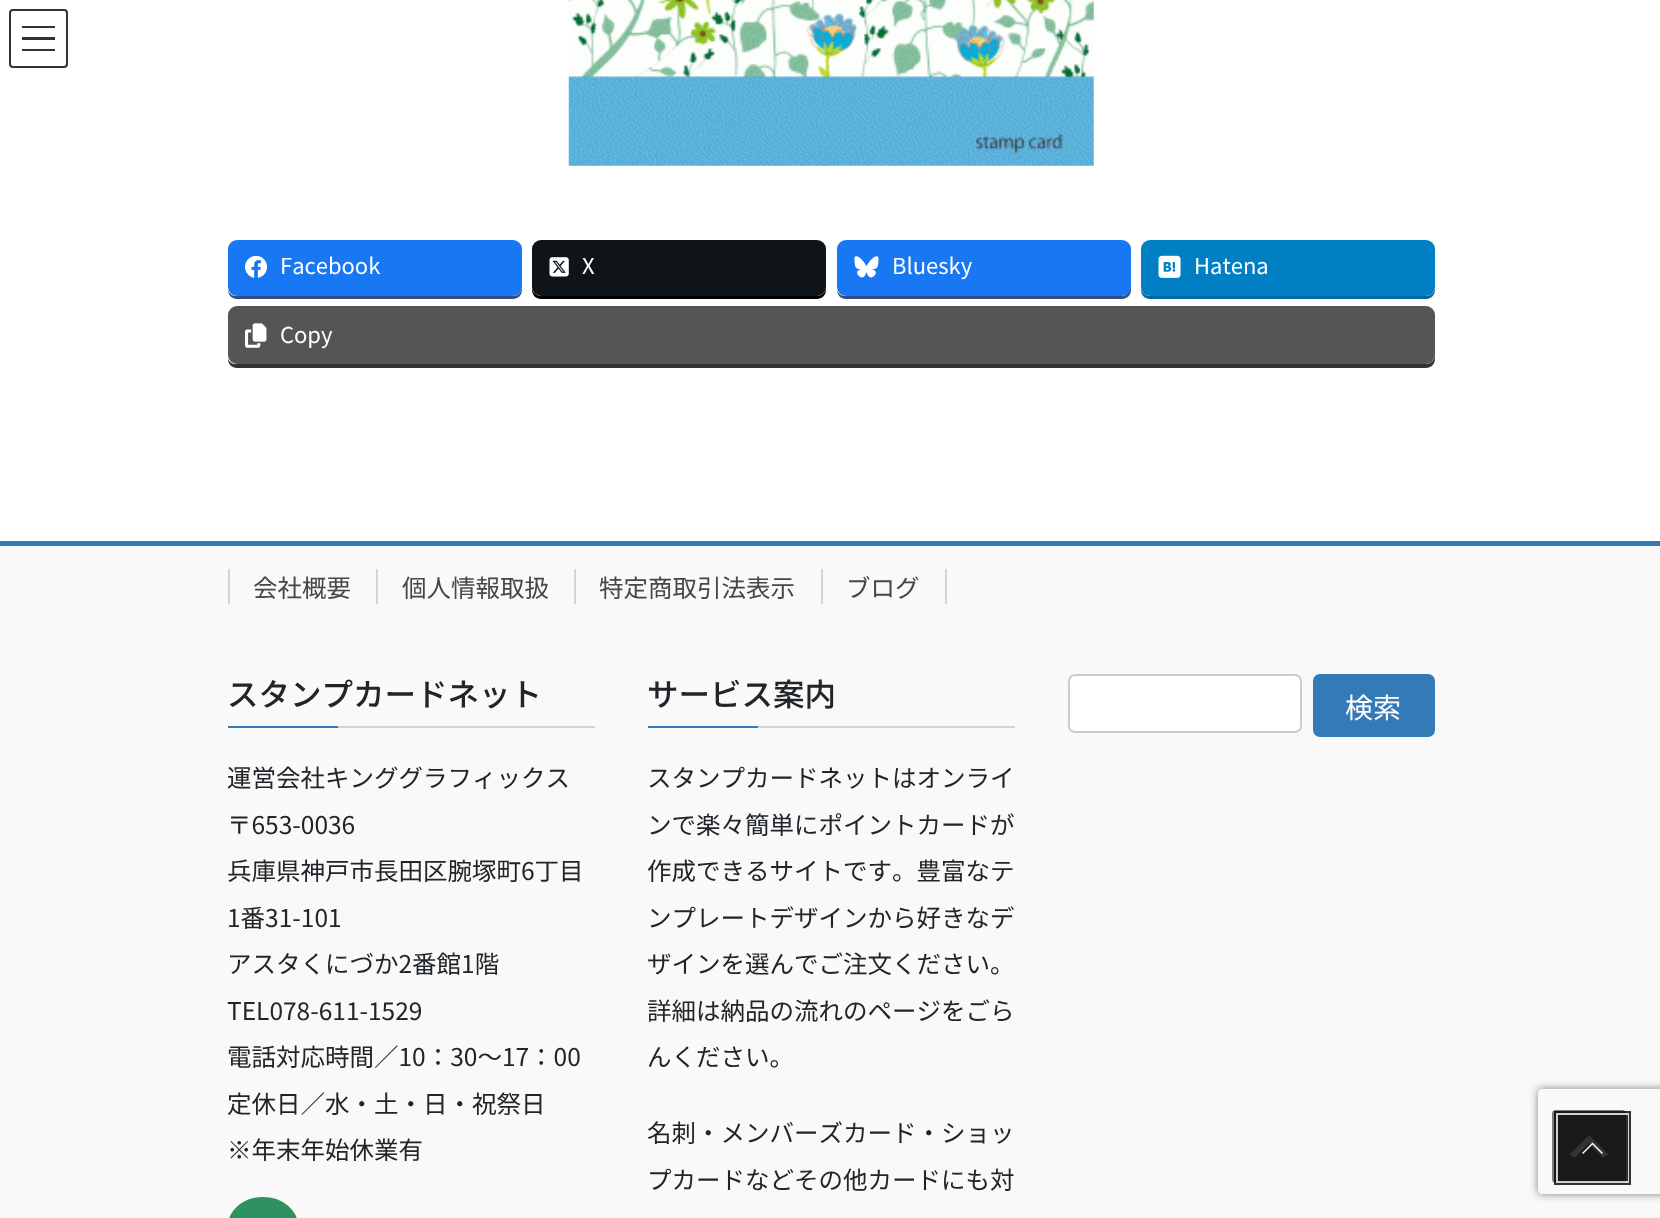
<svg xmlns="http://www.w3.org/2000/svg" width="1660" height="1218">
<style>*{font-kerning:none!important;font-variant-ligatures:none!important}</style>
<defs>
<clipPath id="clip1"><rect x="228" y="754" width="367" height="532"/></clipPath>
<clipPath id="clip2"><path d="M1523 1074h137v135h-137zm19 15h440c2 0 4 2 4 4v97c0 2-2 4-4 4h-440c-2 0-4-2-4-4v-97c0-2 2-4 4-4z" clip-rule="evenodd"/></clipPath>
</defs>
<rect width="100%" height="100%" fill="#fff"/>
<rect x="22" y="26" width="33" height="2" fill="#333"/>
<rect x="22" y="37" width="33" height="3" fill="#333"/>
<rect x="22" y="49" width="33" height="2" fill="#333"/>
<rect x="10" y="10" width="57" height="57" rx="3" fill="none" stroke="#333" stroke-width="2"/>
<image x="568" y="0" width="526" height="166" href="media/1.png"/>
<path d="M228 290c0 5 4 9 9 9h276c5 0 9-4 9-9v-38v-3v38c0 5-4 9-9 9h-277c-4 0-7-3-8-6z" fill="#344e84"/>
<rect x="228" y="240" width="294" height="56" rx="9" fill="#1877f2"/>
<image x="245" y="255" width="22" height="23" href="media/2.png"/>
<text x="280" y="274" style="font-family:Noto Sans JP;font-size:22px;fill:#fff">Facebook</text>
<path d="M532 287v3c0 5 4 9 9 9h276c5 0 9-4 9-9v-3c0 5-4 9-9 9h-276c-5 0-9-4-9-9z" fill="#000"/>
<rect x="532" y="240" width="294" height="56" rx="9" fill="#0f1419"/>
<image x="549" y="257" width="20" height="20" href="media/3.png"/>
<text x="582" y="274" style="font-family:Noto Sans JP;font-size:22px;fill:#fff">X</text>
<path d="M837 290c0 5 4 9 9 9h276c5 0 9-4 9-9v-38l-1-3v38c0 5-3 9-8 9h-277c-4 0-7-3-8-6z" fill="#344e84"/>
<rect x="837" y="240" width="294" height="56" rx="9" fill="#1877f2"/>
<image x="854" y="256" width="25" height="22" href="media/4.png"/>
<text x="892" y="274" style="font-family:Noto Sans JP;font-size:22px;fill:#fff">Bluesky</text>
<path d="M1141 287v3c0 5 4 9 9 9h276c5 0 9-4 9-9v-3c0 5-4 9-9 9h-276c-5 0-9-4-9-9z" fill="#00679f"/>
<rect x="1141" y="240" width="294" height="56" rx="9" fill="#007fc5"/>
<image x="1158" y="255" width="23" height="23" href="media/5.png"/>
<text x="1194" y="274" style="font-family:Noto Sans JP;font-size:22px;fill:#fff">Hatena</text>
<path d="M228 358v1c0 5 4 9 9 9h1189c5 0 9-4 9-9v-4c0 5-4 9-9 9h-1190c-4 0-7-2-8-6z" fill="#333"/>
<rect x="228" y="306" width="1207" height="58" rx="9" fill="#555"/>
<image x="245" y="323" width="22" height="25" href="media/6.png"/>
<text x="280" y="343" style="font-family:Noto Sans JP;font-size:22px;fill:#fff">Copy</text>
<rect y="546" width="1660" height="672" fill="#f9f9f9"/>
<rect y="541" width="1660" height="5" fill="#337ab7"/>
<text x="253" y="597" style="font-family:Noto Sans JP;font-size:24.5px;fill:#464646">会社概要</text>
<rect x="228" y="569" width="2" height="35" fill="#d4d4d4"/>
<text x="402" y="597" style="font-family:Noto Sans JP;font-size:24.5px;fill:#464646">個人情報取扱</text>
<rect x="376" y="569" width="2" height="35" fill="#d4d4d4"/>
<text x="599" y="597" style="font-family:Noto Sans JP;font-size:24.5px;fill:#464646">特定商取引法表示</text>
<rect x="574" y="569" width="2" height="35" fill="#d4d4d4"/>
<text x="846" y="597" style="font-family:Noto Sans JP;font-size:24.5px;fill:#464646">ブログ</text>
<rect x="945" y="569" width="2" height="35" fill="#d4d4d4"/>
<rect x="821" y="569" width="2" height="35" fill="#d4d4d4"/>
<rect x="338" y="726" width="257" height="2" fill="#d4d4d4"/>
<text x="227" y="706" style="font-family:Noto Sans JP;font-size:31.5px;font-weight:500;fill:#212529">スタンプカードネット</text>
<rect x="228" y="726" width="110" height="2" fill="#337ab7"/>
<g clip-path="url(#clip1)">
<text x="227" y="787" style="font-family:Noto Sans JP;font-size:24.5px;fill:#212529">運営会社キンググラフィックス</text>
</g>
<text x="227" y="834" style="font-family:Noto Sans JP;font-size:24.5px;fill:#212529">〒653-0036</text>
<text x="227" y="880" style="font-family:Noto Sans JP;font-size:24.5px;fill:#212529">兵庫県神戸市長田区腕塚町6丁目</text>
<text x="227" y="927" style="font-family:Noto Sans JP;font-size:24.5px;fill:#212529">1番31-101</text>
<text x="227" y="973" style="font-family:Noto Sans JP;font-size:24.5px;fill:#212529">アスタくにづか2番館1階</text>
<text x="227" y="1020" style="font-family:Noto Sans JP;font-size:24.5px;fill:#212529">TEL078-611-1529</text>
<text x="227" y="1066" style="font-family:Noto Sans JP;font-size:24.5px;fill:#212529">電話対応時間／10：30〜17：00</text>
<text x="227" y="1113" style="font-family:Noto Sans JP;font-size:24.5px;fill:#212529">定休日／水・土・日・祝祭日</text>
<text x="227" y="1159" style="font-family:Noto Sans JP;font-size:24.5px;fill:#212529">※年末年始休業有</text>
<rect x="229" y="1198" width="68" height="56" rx="34" fill="#2f915f" stroke="#2f915f" stroke-width="2"/>
<rect x="758" y="726" width="257" height="2" fill="#d4d4d4"/>
<text x="647" y="706" style="font-family:Noto Sans JP;font-size:31.5px;font-weight:500;fill:#212529">サービス案内</text>
<rect x="648" y="726" width="110" height="2" fill="#337ab7"/>
<text x="647" y="787" style="font-family:Noto Sans JP;font-size:24.5px;fill:#212529">スタンプカードネットはオンライ</text>
<text x="647" y="834" style="font-family:Noto Sans JP;font-size:24.5px;fill:#212529">ンで楽々簡単にポイントカードが</text>
<text x="647" y="880" style="font-family:Noto Sans JP;font-size:24.5px;fill:#212529">作成できるサイトです。豊富なテ</text>
<text x="647" y="927" style="font-family:Noto Sans JP;font-size:24.5px;fill:#212529">ンプレートデザインから好きなデ</text>
<text x="647" y="973" style="font-family:Noto Sans JP;font-size:24.5px;fill:#212529">ザインを選んでご注文ください。</text>
<text x="647" y="1020" style="font-family:Noto Sans JP;font-size:24.5px;fill:#212529">詳細は納品の流れのページをごら</text>
<text x="647" y="1066" style="font-family:Noto Sans JP;font-size:24.5px;fill:#212529">んください。</text>
<text x="647" y="1142" style="font-family:Noto Sans JP;font-size:24.5px;fill:#212529">名刺・メンバーズカード・ショッ</text>
<text x="647" y="1189" style="font-family:Noto Sans JP;font-size:24.5px;fill:#212529">プカードなどその他カードにも対</text>
<rect x="1069" y="675" width="232" height="57" rx="6" fill="#fff" stroke="#ccc" stroke-width="2"/>
<rect x="1313" y="674" width="122" height="63" rx="7" fill="#337ab7"/>
<text x="1345" y="718" style="font-family:Noto Sans JP;font-size:28px;fill:#fff">検索</text>
<g clip-path="url(#clip2)">
<rect x="1538" y="1089" width="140" height="105" rx="4" fill="#808080" filter="blur(4.5px)"/>
</g>
<rect x="1552" y="1110" width="74" height="73" rx="4" fill="#7d7d7d"/>
<path d="M1603 1157.5l-14-14l-14 14l-5.5-3l19.5-19.5l19.5 19.5z" fill="#fcfcfc"/>
<rect x="1556" y="1113" width="73" height="70" fill="none" stroke="#000000cc" stroke-width="4"/>
<rect x="1557" y="1114" width="71" height="68" fill="none" stroke="#ffffffcc" stroke-width="2"/>
<rect x="1558" y="1115" width="70" height="66" fill="#000000cc"/>
<path d="M1603 1153l-1 1l-9.5-9.5l-9.5 9.5l-1-1l10.5-10.5z" fill="#fff"/>
</svg>
